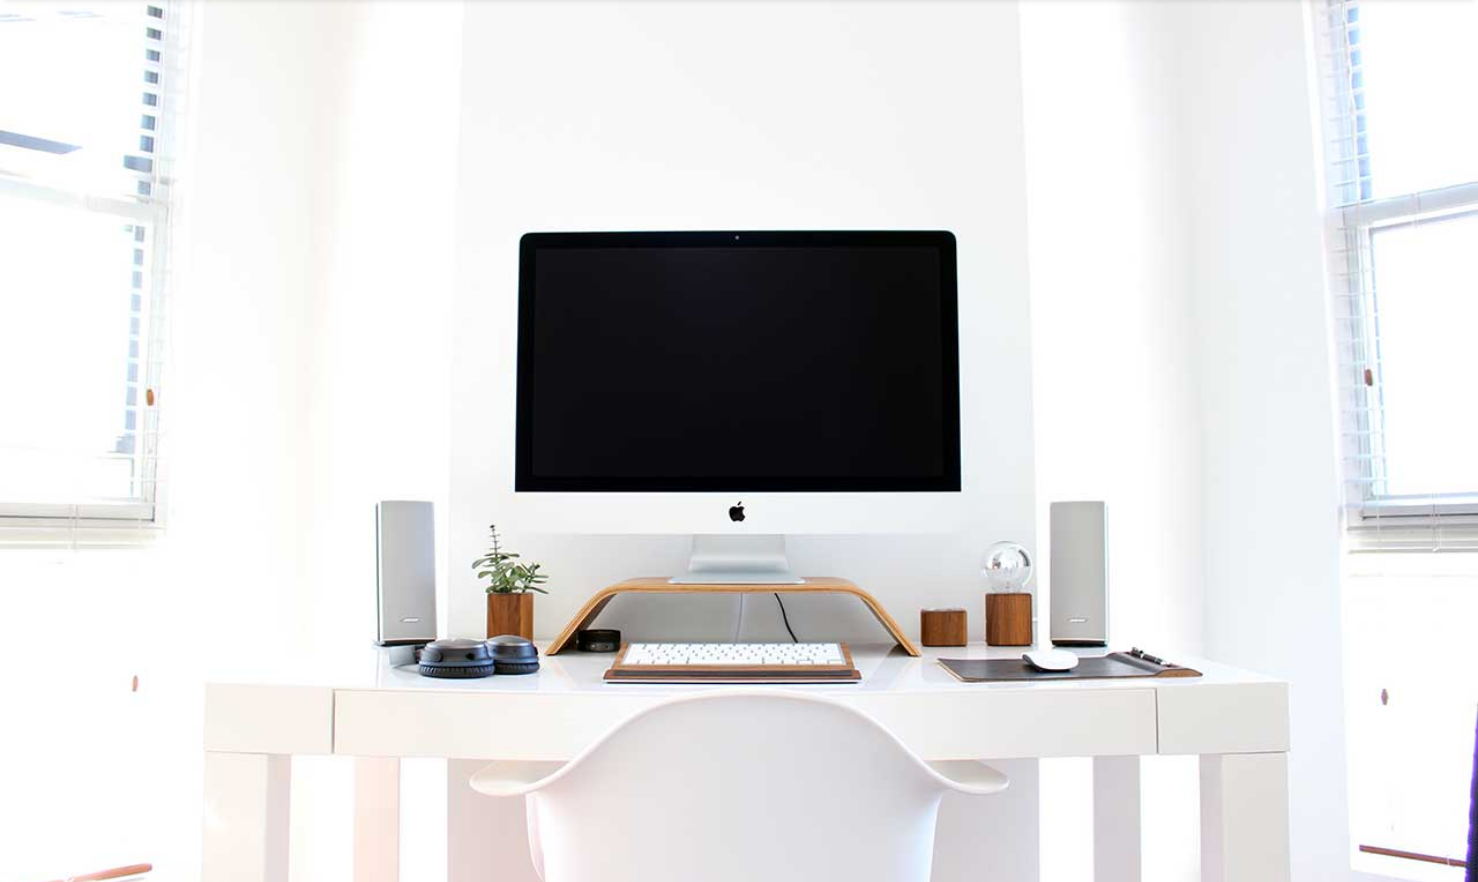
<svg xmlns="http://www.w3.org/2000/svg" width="1478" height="882">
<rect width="100%" height="100%" fill="#fff"/>
<image x="0" y="0" width="1478" height="882" href="media/1.png"/>
<rect x="4" y="-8" width="1470" height="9" fill="#0000001a" filter="blur(2.5px)"/>
</svg>
